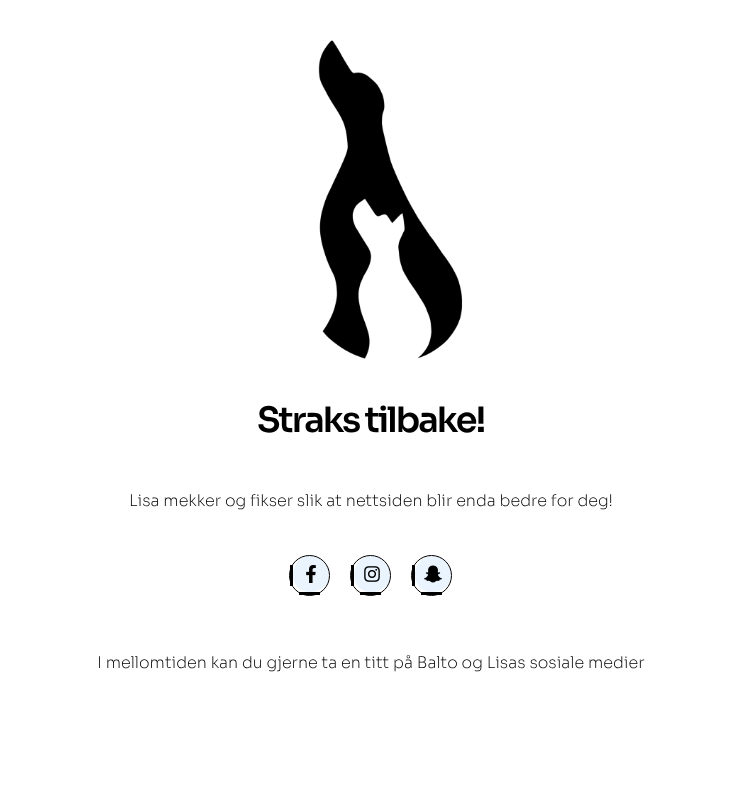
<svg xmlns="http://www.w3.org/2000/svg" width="741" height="803">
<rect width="100%" height="100%" fill="#fff"/>
<image x="318" y="40" width="145" height="319" href="media/1.png"/>
<text x="257" y="432" style="font-family:Sora;font-size:35px;font-weight:600;letter-spacing:-2px;fill:#000">Straks tilbake!</text>
<text x="129" y="506" style="font-family:Sora;font-size:16px;font-weight:200;fill:#000">Lisa mekker og fikser slik at nettsiden blir enda bedre for deg!</text>
<path d="M309.5 556c11 0 19.5 8.5 19.5 19.5c0 9-8.5 16.5-19.5 16.5c-9 0-16.5-7.5-16.5-16.5c0-11 7.5-19.5 16.5-19.5z" fill="#e9f4fe"/>
<circle cx="309.5" cy="575.5" r="20" fill="none" stroke="#000"/>
<rect x="299" y="592" width="21" height="3" fill="#000"/>
<rect x="290" y="565" width="3" height="21" fill="#000"/>
<image x="306" y="565" width="10" height="18" href="media/2.png"/>
<path d="M370.5 556c11 0 19.5 8.5 19.5 19.5c0 9-8.5 16.5-19.5 16.5c-9 0-16.5-7.5-16.5-16.5c0-11 7.5-19.5 16.5-19.5z" fill="#e9f4fe"/>
<circle cx="370.5" cy="575.5" r="20" fill="none" stroke="#000"/>
<rect x="360" y="592" width="21" height="3" fill="#000"/>
<rect x="351" y="565" width="3" height="21" fill="#000"/>
<image x="364" y="566" width="16" height="16" href="media/3.png"/>
<path d="M431.5 556c11 0 19.5 8.5 19.5 19.5c0 9-8.5 16.5-19.5 16.5c-9 0-16.5-7.5-16.5-16.5c0-11 7.5-19.5 16.5-19.5z" fill="#e9f4fe"/>
<circle cx="431.5" cy="575.5" r="20" fill="none" stroke="#000"/>
<rect x="421" y="592" width="21" height="3" fill="#000"/>
<rect x="412" y="565" width="3" height="21" fill="#000"/>
<image x="424" y="565" width="18" height="18" href="media/4.png"/>
<text x="97" y="668" style="font-family:Sora;font-size:16px;font-weight:200;fill:#000">I mellomtiden kan du gjerne ta en titt på Balto og Lisas sosiale medier</text>
</svg>
